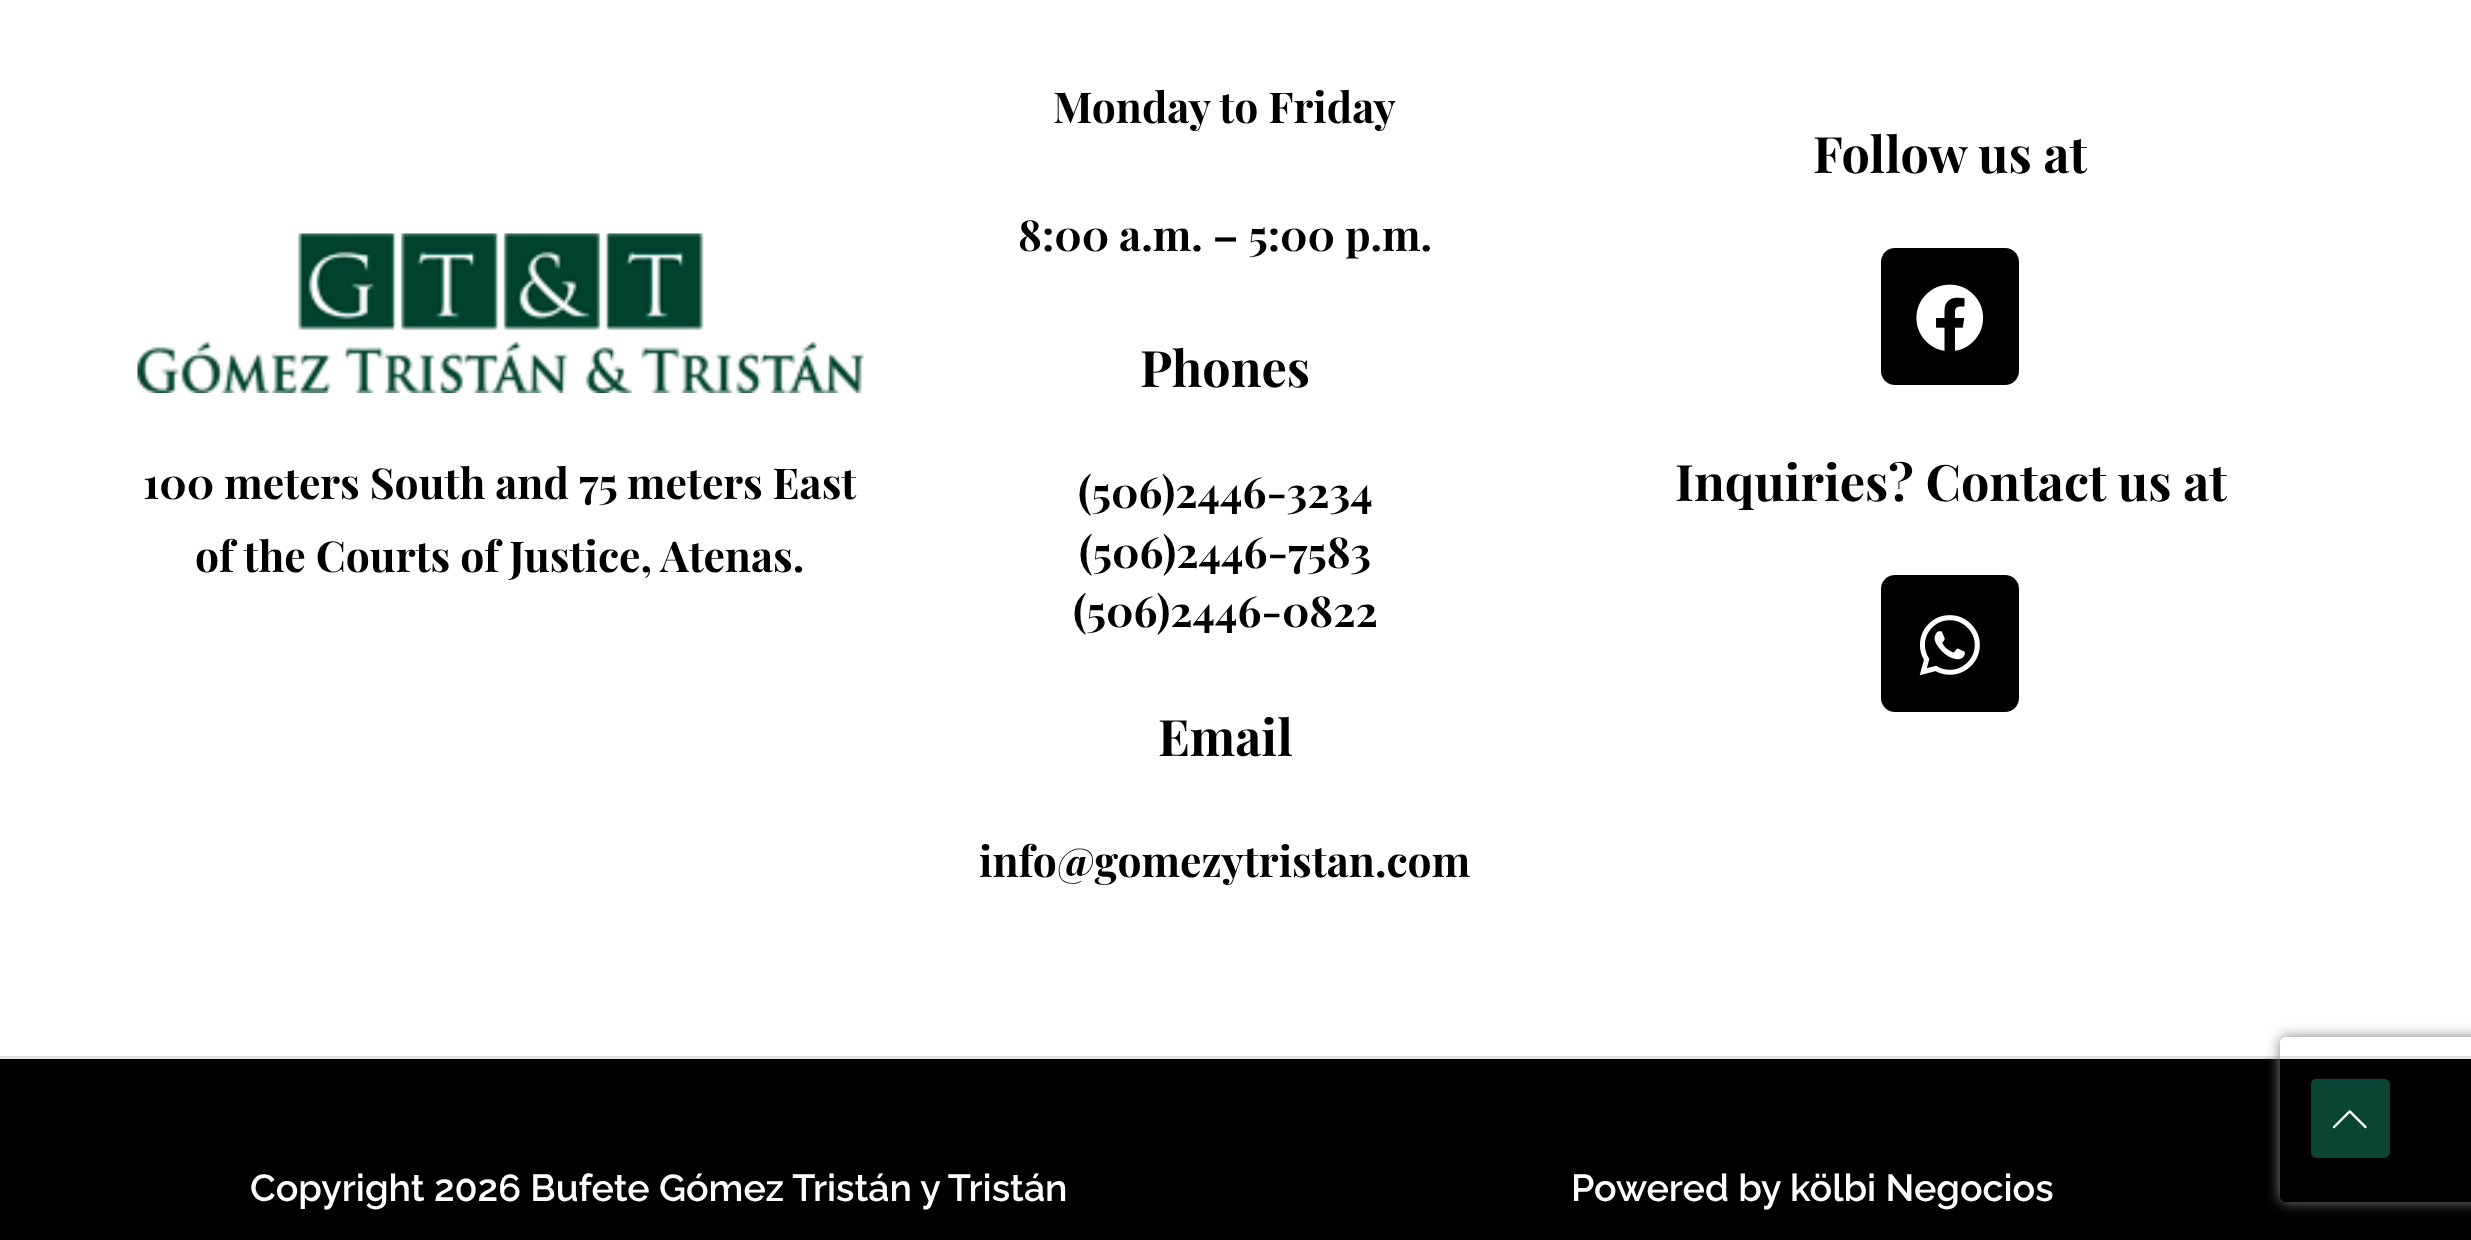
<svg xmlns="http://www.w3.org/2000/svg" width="2471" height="1240">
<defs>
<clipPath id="clip1"><path d="M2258 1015h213v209h-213zm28 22h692c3.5 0 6 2.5 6 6v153c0 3.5-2.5 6-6 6h-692c-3.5 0-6-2.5-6-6v-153c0-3.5 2.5-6 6-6z" clip-rule="evenodd"/></clipPath>
</defs>
<rect width="100%" height="100%" fill="#fff"/>
<text x="1053" y="123" style="font-family:Playfair Display;font-size:42.6px;font-weight:bold;fill:#000">Monday to Friday</text>
<text x="1018" y="251" style="font-family:Playfair Display;font-size:42.6px;font-weight:bold;fill:#000">8:00 a.m. – 5:00 p.m.</text>
<text x="1140" y="387" style="font-family:Playfair Display;font-size:50.25px;font-weight:bold;fill:#000">Phones</text>
<text x="1078" y="508" style="font-family:Playfair Display;font-size:42.6px;font-weight:bold;fill:#000">(506)2446-3234</text>
<text x="1079" y="568" style="font-family:Playfair Display;font-size:42.6px;font-weight:bold;fill:#000">(506)2446-7583</text>
<text x="1073" y="627" style="font-family:Playfair Display;font-size:42.6px;font-weight:bold;fill:#000">(506)2446-0822</text>
<text x="1158" y="756" style="font-family:Playfair Display;font-size:50.25px;font-weight:bold;fill:#000">Email</text>
<text x="979" y="877" style="font-family:Playfair Display;font-size:42.6px;font-weight:bold;fill:#000">info@gomezytristan.com</text>
<text x="1813" y="173" style="font-family:Playfair Display;font-size:50.25px;font-weight:bold;fill:#000">Follow us at</text>
<rect x="1881" y="248" width="138" height="137" rx="14" fill="#000"/>
<image x="1916" y="284" width="68" height="67" href="media/1.png"/>
<text x="1675" y="501" style="font-family:Playfair Display;font-size:50.25px;font-weight:bold;fill:#000">Inquiries? Contact us at</text>
<rect x="1881" y="575" width="138" height="137" rx="14" fill="#000"/>
<image x="1919" y="615" width="61" height="61" href="media/2.png"/>
<image x="137" y="233" width="727" height="160" href="media/3.png"/>
<text x="143" y="499" style="font-family:Playfair Display;font-size:42.6px;font-weight:bold;fill:#000">100 meters South and 75 meters East</text>
<text x="195" y="572" style="font-family:Playfair Display;font-size:42.6px;font-weight:bold;fill:#000">of the Courts of Justice, Atenas.</text>
<rect y="1059" width="2471" height="181" fill="#000"/>
<rect y="1056" width="2471" height="3" fill="#e0e0e0"/>
<text x="250" y="1201" style="font-family:Raleway;font-size:37.6px;font-weight:100;fill:#fff">Copyright 2026 Bufete Gómez Tristán y Tristán</text>
<text x="1571" y="1201" style="font-family:Raleway;font-size:37.6px;font-weight:100;fill:#fff">Powered by kölbi Negocios</text>
<g clip-path="url(#clip1)">
<rect x="2280" y="1037" width="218" height="165" rx="6" fill="#808080" filter="blur(7px)"/>
</g>
<path d="M2384 1158h-68c-3 0-5-3-5-6v-68c0-3 2-5 5-5h68c3 0 6 2 6 5v68c0 3-3 6-6 6z" fill="#0a4432"/>
<image x="2332" y="1110" width="35" height="19" href="media/4.png"/>
</svg>
